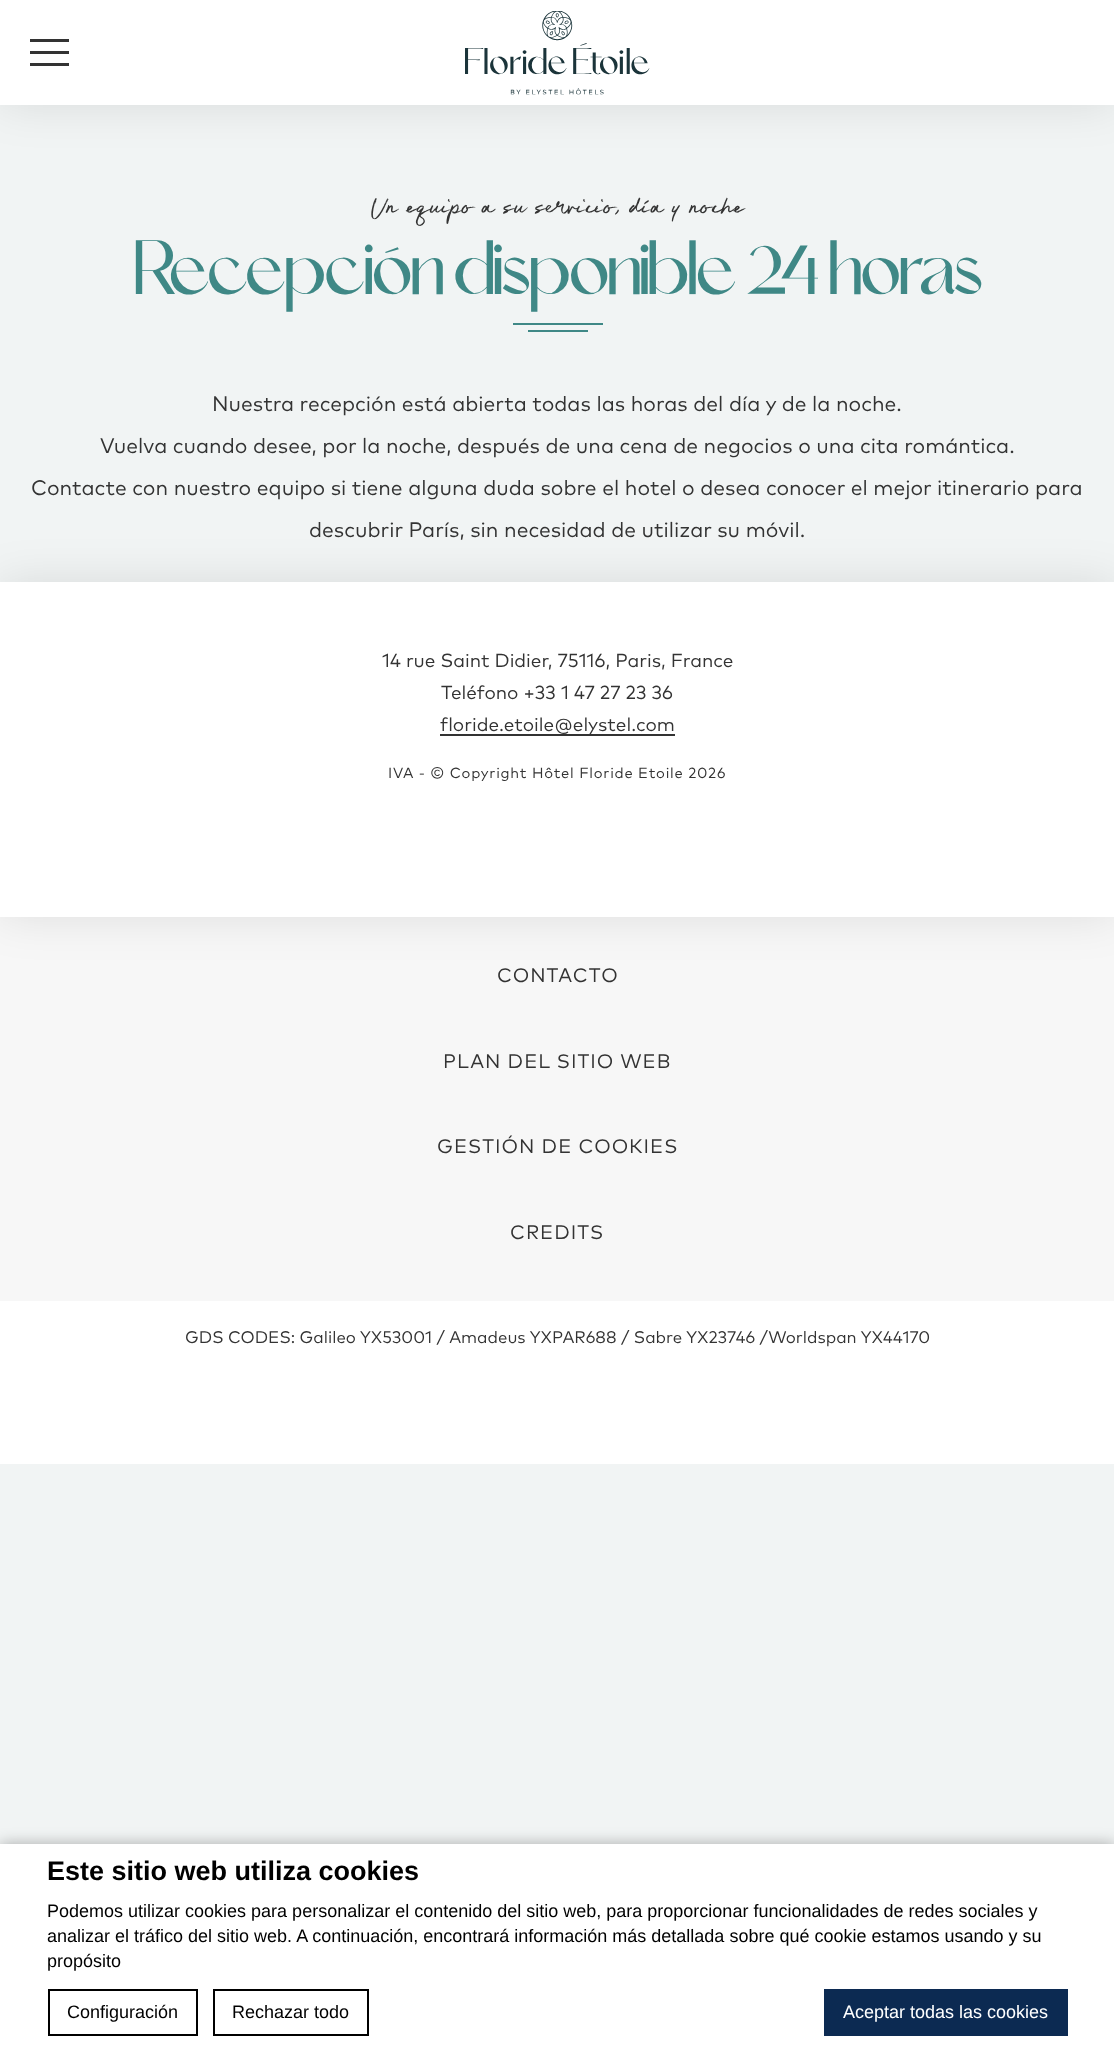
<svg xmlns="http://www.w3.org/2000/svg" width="1114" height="2057">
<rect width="100%" height="100%" fill="#f1f4f4"/>
<rect width="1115" height="105" fill="#0000001a" filter="blur(22.5px)"/>
<rect width="1114" height="105" fill="#fff"/>
<rect x="30" y="39" width="39" height="3" fill="#333"/>
<rect x="30" y="63" width="39" height="3" fill="#333"/>
<rect x="30" y="51" width="39" height="3" fill="#333"/>
<image x="465" y="11" width="185" height="84" href="media/1.png"/>
<text x="370" y="218" style="font-family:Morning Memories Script;font-size:31.5px;fill:#333">Un equipo a su servicio, día y noche</text>
<text x="134" y="294" style="font-family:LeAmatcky;font-size:42px;fill:#3f8886">Recepción disponible 24 horas</text>
<rect x="513" y="323" width="90" height="2" fill="#3f8886"/>
<rect x="528" y="330" width="60" height="2" fill="#3f8886"/>
<text x="212" y="411" style="font-family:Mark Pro;font-size:21px;fill:#333">Nuestra recepción está abierta todas las horas del día y de la noche.</text>
<text x="100" y="453" style="font-family:Mark Pro;font-size:21px;fill:#333">Vuelva cuando desee, por la noche, después de una cena de negocios o una cita romántica.</text>
<text x="31" y="495" style="font-family:Mark Pro;font-size:21px;fill:#333">Contacte con nuestro equipo si tiene alguna duda sobre el hotel o desea conocer el mejor itinerario para</text>
<text x="309" y="537" style="font-family:Mark Pro;font-size:21px;fill:#333">descubrir París, sin necesidad de utilizar su móvil.</text>
<rect y="917" width="1114" height="384" fill="#f7f7f7"/>
<rect y="582" width="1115" height="335" fill="#0000001a" filter="blur(22.5px)"/>
<rect y="582" width="1114" height="335" fill="#fff"/>
<text x="382" y="667" style="font-family:Mark Pro;font-size:18.9px;fill:#333">14 rue Saint Didier, 75116, Paris, France</text>
<text x="441" y="699" style="font-family:Mark Pro;font-size:18.9px;fill:#333">Teléfono +33 1 47 27 23 36</text>
<rect x="440" y="734" width="235" height="2" fill="#333"/>
<text x="440" y="731" style="font-family:Mark Pro;font-size:18.9px;fill:#333">floride.etoile@elystel.com</text>
<text x="388" y="778" style="font-family:Mark Pro;font-size:14.7px;letter-spacing:0.75px;fill:#333">IVA - © Copyright Hôtel Floride Etoile 2026</text>
<text x="497" y="982" style="font-family:Mark Pro;font-size:19.5px;letter-spacing:1px;fill:#333">CONTACTO</text>
<text x="443" y="1068" style="font-family:Mark Pro;font-size:19.5px;letter-spacing:1px;fill:#333">PLAN DEL SITIO WEB</text>
<text x="437" y="1153" style="font-family:Mark Pro;font-size:19.5px;letter-spacing:1px;fill:#333">GESTIÓN DE COOKIES</text>
<text x="510" y="1239" style="font-family:Mark Pro;font-size:19.5px;letter-spacing:1px;fill:#333">CREDITS</text>
<rect y="1301" width="1114" height="163" fill="#fff"/>
<text x="185" y="1343" style="font-family:Mark Pro;font-size:16.8px;fill:#333">GDS CODES: Galileo YX53001 / Amadeus YXPAR688 / Sabre YX23746 /Worldspan YX44170</text>
<rect y="1844" width="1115" height="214" fill="#0000004d" filter="blur(7.5px)"/>
<rect y="1844" width="1114" height="213" fill="#fff"/>
<text x="47" y="1880" style="font-family:Liberation Sans;font-size:27px;font-weight:bold;fill:#000">Este sitio web utiliza cookies</text>
<text x="47" y="1917" style="font-family:Liberation Sans;font-size:18px;fill:#000">Podemos utilizar cookies para personalizar el contenido del sitio web, para proporcionar funcionalidades de redes sociales y</text>
<text x="47" y="1942" style="font-family:Liberation Sans;font-size:18px;fill:#000">analizar el tráfico del sitio web. A continuación, encontrará información más detallada sobre qué cookie estamos usando y su</text>
<text x="47" y="1967" style="font-family:Liberation Sans;font-size:18px;fill:#000">propósito</text>
<rect x="49" y="1990" width="148" height="45" fill="none" stroke="#000" stroke-width="2"/>
<text x="67" y="2018" style="font-family:Liberation Sans;font-size:18px;fill:#000">Configuración</text>
<rect x="214" y="1990" width="154" height="45" fill="none" stroke="#000" stroke-width="2"/>
<text x="232" y="2018" style="font-family:Liberation Sans;font-size:18px;fill:#000">Rechazar todo</text>
<rect x="824" y="1989" width="244" height="47" fill="#0c2a52"/>
<text x="843" y="2018" style="font-family:Liberation Sans;font-size:18px;fill:#fff">Aceptar todas las cookies</text>
</svg>
